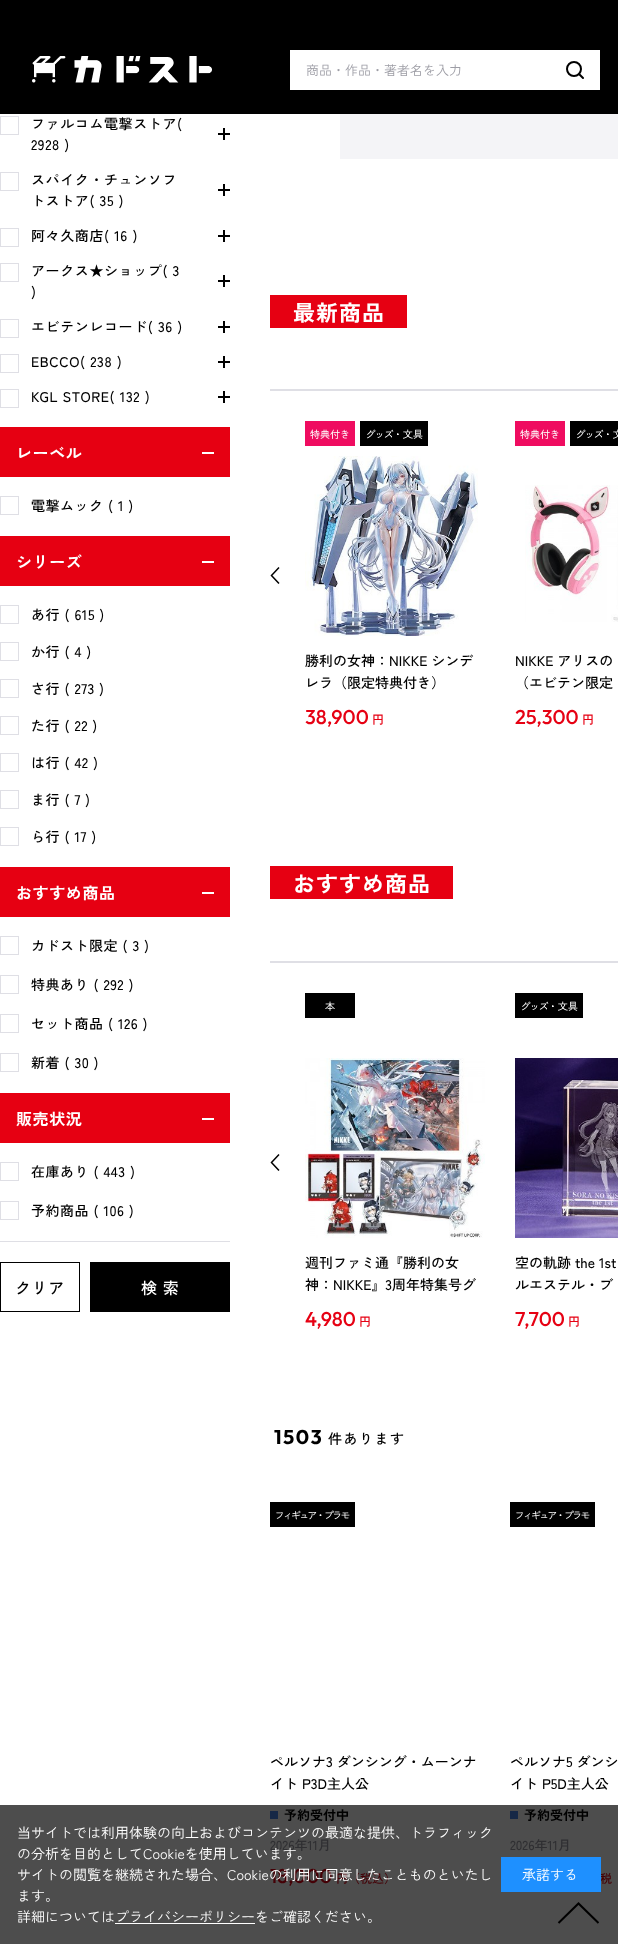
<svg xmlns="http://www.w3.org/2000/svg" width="618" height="1944">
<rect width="100%" height="100%" fill="#fff"/>
<rect y="1805" width="618" height="139" fill="#4d4d4d"/>
<rect width="618" height="114" fill="#000"/>
<image x="32" y="56" width="180" height="27" href="media/1.png"/>
<rect x="290" y="50" width="310" height="40" fill="#fff"/>
<text x="306" y="75" style="font-family:Zen Kaku Gothic New;font-size:13px;fill:#9d9da5">商品・作品・著者名を入力</text>
<circle cx="574" cy="69" r="7" fill="none" stroke="#000" stroke-width="2"/>
<path d="M579 74l4 4" fill="none" stroke="#000" stroke-width="2" stroke-linecap="round" stroke-linejoin="round"/>
<rect x="0.5" y="116.5" width="18" height="18" fill="none" stroke="#dfdfe5"/>
<text x="31" y="129" style="font-family:Zen Kaku Gothic New;font-size:14px;font-weight:500;letter-spacing:0.6px;fill:#000">ファルコム電撃ストア(</text>
<text x="31" y="150" style="font-family:Zen Kaku Gothic New;font-size:14px;font-weight:500;letter-spacing:0.6px;fill:#000">2928 )</text>
<rect x="218" y="133" width="12" height="2" fill="#000"/>
<rect x="223" y="128" width="2" height="12" fill="#000"/>
<rect x="0.5" y="172.5" width="18" height="18" fill="none" stroke="#dfdfe5"/>
<text x="31" y="185" style="font-family:Zen Kaku Gothic New;font-size:14px;font-weight:500;letter-spacing:0.6px;fill:#000">スパイク・チュンソフ</text>
<text x="31" y="206" style="font-family:Zen Kaku Gothic New;font-size:14px;font-weight:500;letter-spacing:0.6px;fill:#000">トストア( 35 )</text>
<rect x="218" y="189" width="12" height="2" fill="#000"/>
<rect x="223" y="184" width="2" height="12" fill="#000"/>
<rect x="0.5" y="228.5" width="18" height="18" fill="none" stroke="#dfdfe5"/>
<text x="31" y="241" style="font-family:Zen Kaku Gothic New;font-size:14px;font-weight:500;letter-spacing:0.6px;fill:#000">阿々久商店( 16 )</text>
<rect x="218" y="235" width="12" height="2" fill="#000"/>
<rect x="223" y="230" width="2" height="12" fill="#000"/>
<rect x="0.5" y="263.5" width="18" height="18" fill="none" stroke="#dfdfe5"/>
<text x="31" y="276" style="font-family:Zen Kaku Gothic New;font-size:14px;font-weight:500;letter-spacing:0.6px;fill:#000">アークス★ショップ( 3</text>
<text x="31" y="297" style="font-family:Zen Kaku Gothic New;font-size:14px;font-weight:500;letter-spacing:0.6px;fill:#000">)</text>
<rect x="218" y="280" width="12" height="2" fill="#000"/>
<rect x="223" y="275" width="2" height="12" fill="#000"/>
<rect x="0.5" y="319.5" width="18" height="18" fill="none" stroke="#dfdfe5"/>
<text x="31" y="332" style="font-family:Zen Kaku Gothic New;font-size:14px;font-weight:500;letter-spacing:0.6px;fill:#000">エビテンレコード( 36 )</text>
<rect x="218" y="326" width="12" height="2" fill="#000"/>
<rect x="223" y="321" width="2" height="12" fill="#000"/>
<rect x="0.5" y="354.5" width="18" height="18" fill="none" stroke="#dfdfe5"/>
<text x="31" y="367" style="font-family:Zen Kaku Gothic New;font-size:14px;font-weight:500;letter-spacing:0.6px;fill:#000">EBCCO( 238 )</text>
<rect x="218" y="361" width="12" height="2" fill="#000"/>
<rect x="223" y="356" width="2" height="12" fill="#000"/>
<rect x="0.5" y="389.5" width="18" height="18" fill="none" stroke="#dfdfe5"/>
<text x="31" y="402" style="font-family:Zen Kaku Gothic New;font-size:14px;font-weight:500;letter-spacing:0.6px;fill:#000">KGL STORE( 132 )</text>
<rect x="218" y="396" width="12" height="2" fill="#000"/>
<rect x="223" y="391" width="2" height="12" fill="#000"/>
<rect y="427" width="230" height="50" fill="#e60012"/>
<text x="16" y="459" style="font-family:Zen Kaku Gothic New;font-size:16px;font-weight:bold;letter-spacing:0.6px;fill:#fff">レーベル</text>
<rect x="202" y="452" width="12" height="2" fill="#fff"/>
<rect x="0.5" y="496.5" width="18" height="18" fill="none" stroke="#dfdfe5"/>
<text x="31" y="511" style="font-family:Zen Kaku Gothic New;font-size:14px;font-weight:500;letter-spacing:0.5px;fill:#000">電撃ムック ( 1 )</text>
<rect y="536" width="230" height="50" fill="#e60012"/>
<text x="16" y="568" style="font-family:Zen Kaku Gothic New;font-size:16px;font-weight:bold;letter-spacing:0.6px;fill:#fff">シリーズ</text>
<rect x="202" y="561" width="12" height="2" fill="#fff"/>
<rect x="0.5" y="605.5" width="18" height="18" fill="none" stroke="#dfdfe5"/>
<text x="31" y="620" style="font-family:Zen Kaku Gothic New;font-size:14px;font-weight:500;letter-spacing:0.5px;fill:#000">あ行 ( 615 )</text>
<rect x="0.5" y="642.5" width="18" height="18" fill="none" stroke="#dfdfe5"/>
<text x="31" y="657" style="font-family:Zen Kaku Gothic New;font-size:14px;font-weight:500;letter-spacing:0.5px;fill:#000">か行 ( 4 )</text>
<rect x="0.5" y="679.5" width="18" height="18" fill="none" stroke="#dfdfe5"/>
<text x="31" y="694" style="font-family:Zen Kaku Gothic New;font-size:14px;font-weight:500;letter-spacing:0.5px;fill:#000">さ行 ( 273 )</text>
<rect x="0.5" y="716.5" width="18" height="18" fill="none" stroke="#dfdfe5"/>
<text x="31" y="731" style="font-family:Zen Kaku Gothic New;font-size:14px;font-weight:500;letter-spacing:0.5px;fill:#000">た行 ( 22 )</text>
<rect x="0.5" y="753.5" width="18" height="18" fill="none" stroke="#dfdfe5"/>
<text x="31" y="768" style="font-family:Zen Kaku Gothic New;font-size:14px;font-weight:500;letter-spacing:0.5px;fill:#000">は行 ( 42 )</text>
<rect x="0.5" y="790.5" width="18" height="18" fill="none" stroke="#dfdfe5"/>
<text x="31" y="805" style="font-family:Zen Kaku Gothic New;font-size:14px;font-weight:500;letter-spacing:0.5px;fill:#000">ま行 ( 7 )</text>
<rect x="0.5" y="827.5" width="18" height="18" fill="none" stroke="#dfdfe5"/>
<text x="31" y="842" style="font-family:Zen Kaku Gothic New;font-size:14px;font-weight:500;letter-spacing:0.5px;fill:#000">ら行 ( 17 )</text>
<rect y="867" width="230" height="50" fill="#e60012"/>
<text x="16" y="899" style="font-family:Zen Kaku Gothic New;font-size:16px;font-weight:bold;letter-spacing:0.6px;fill:#fff">おすすめ商品</text>
<rect x="202" y="892" width="12" height="2" fill="#fff"/>
<rect x="0.5" y="936.5" width="18" height="18" fill="none" stroke="#dfdfe5"/>
<text x="31" y="951" style="font-family:Zen Kaku Gothic New;font-size:14px;font-weight:500;letter-spacing:0.5px;fill:#000">カドスト限定 ( 3 )</text>
<rect x="0.5" y="975.5" width="18" height="18" fill="none" stroke="#dfdfe5"/>
<text x="31" y="990" style="font-family:Zen Kaku Gothic New;font-size:14px;font-weight:500;letter-spacing:0.5px;fill:#000">特典あり ( 292 )</text>
<rect x="0.5" y="1014.5" width="18" height="18" fill="none" stroke="#dfdfe5"/>
<text x="31" y="1029" style="font-family:Zen Kaku Gothic New;font-size:14px;font-weight:500;letter-spacing:0.5px;fill:#000">セット商品 ( 126 )</text>
<rect x="0.5" y="1053.5" width="18" height="18" fill="none" stroke="#dfdfe5"/>
<text x="31" y="1068" style="font-family:Zen Kaku Gothic New;font-size:14px;font-weight:500;letter-spacing:0.5px;fill:#000">新着 ( 30 )</text>
<rect y="1093" width="230" height="50" fill="#e60012"/>
<text x="16" y="1125" style="font-family:Zen Kaku Gothic New;font-size:16px;font-weight:bold;letter-spacing:0.6px;fill:#fff">販売状況</text>
<rect x="202" y="1118" width="12" height="2" fill="#fff"/>
<rect x="0.5" y="1162.5" width="18" height="18" fill="none" stroke="#dfdfe5"/>
<text x="31" y="1177" style="font-family:Zen Kaku Gothic New;font-size:14px;font-weight:500;letter-spacing:0.5px;fill:#000">在庫あり ( 443 )</text>
<rect x="0.5" y="1201.5" width="18" height="18" fill="none" stroke="#dfdfe5"/>
<text x="31" y="1216" style="font-family:Zen Kaku Gothic New;font-size:14px;font-weight:500;letter-spacing:0.5px;fill:#000">予約商品 ( 106 )</text>
<rect y="1241" width="230" height="1" fill="#dfdfe5"/>
<rect x="0.5" y="1262.5" width="79" height="49" fill="none" stroke="#000"/>
<text x="15" y="1294" style="font-family:Zen Kaku Gothic New;font-size:16px;font-weight:500;letter-spacing:0.6px;fill:#000">クリア</text>
<rect x="90" y="1262" width="140" height="50" fill="#000"/>
<text x="141" y="1294" style="font-family:Zen Kaku Gothic New;font-size:16px;font-weight:500;letter-spacing:0.6px;fill:#fff">検 索</text>
<rect x="340" y="114" width="278" height="45" fill="#f4f4f7"/>
<rect x="270" y="389" width="348" height="2" fill="#dfdfe5"/>
<rect x="270" y="295" width="137" height="33" fill="#e60012"/>
<text x="293" y="321" style="font-family:Zen Kaku Gothic New;font-size:22px;font-weight:bold;letter-spacing:1px;fill:#fff">最新商品</text>
<path d="M279 583.5l-7.5-8l7.5-8" fill="none" stroke="#000" stroke-width="1.5"/>
<image x="305" y="421" width="50" height="25" href="media/2.png"/>
<image x="360" y="421" width="68" height="25" href="media/3.png"/>
<image x="305" y="456" width="173" height="180" href="media/4.png"/>
<text x="305" y="666" style="font-family:Zen Kaku Gothic New;font-size:14px;font-weight:500;fill:#000">勝利の女神：NIKKE シンデ</text>
<text x="305" y="688" style="font-family:Zen Kaku Gothic New;font-size:14px;font-weight:500;fill:#000">レラ（限定特典付き）</text>
<text x="305" y="724" style="font-family:Outfit;font-size:20px;font-weight:500;fill:#e60113">38,900</text>
<text x="372" y="724" style="font-family:Zen Kaku Gothic New;font-size:12px;font-weight:500;fill:#e60113">円</text>
<image x="515" y="421" width="50" height="25" href="media/2.png"/>
<image x="570" y="421" width="48" height="25" href="media/5.png"/>
<image x="525" y="485" width="93" height="137" href="media/6.png"/>
<text x="515" y="666" style="font-family:Zen Kaku Gothic New;font-size:14px;font-weight:500;fill:#000">NIKKE アリスの</text>
<text x="515" y="688" style="font-family:Zen Kaku Gothic New;font-size:14px;font-weight:500;fill:#000">（エビテン限定</text>
<text x="515" y="724" style="font-family:Outfit;font-size:20px;font-weight:500;fill:#e60113">25,300</text>
<text x="582" y="724" style="font-family:Zen Kaku Gothic New;font-size:12px;font-weight:500;fill:#e60113">円</text>
<rect x="270" y="961" width="348" height="2" fill="#dfdfe5"/>
<rect x="270" y="866" width="183" height="33" fill="#e60012"/>
<text x="293" y="892" style="font-family:Zen Kaku Gothic New;font-size:22px;font-weight:bold;letter-spacing:1px;fill:#fff">おすすめ商品</text>
<path d="M279 1170.5l-7.5-8l7.5-8" fill="none" stroke="#000" stroke-width="1.5"/>
<image x="305" y="993" width="50" height="25" href="media/7.png"/>
<image x="305" y="1058" width="180" height="180" href="media/8.png"/>
<text x="305" y="1268" style="font-family:Zen Kaku Gothic New;font-size:14px;font-weight:500;fill:#000">週刊ファミ通『勝利の女</text>
<text x="305" y="1290" style="font-family:Zen Kaku Gothic New;font-size:14px;font-weight:500;fill:#000">神：NIKKE』3周年特集号グ</text>
<text x="305" y="1326" style="font-family:Outfit;font-size:20px;font-weight:500;fill:#e60113">4,980</text>
<text x="359" y="1326" style="font-family:Zen Kaku Gothic New;font-size:12px;font-weight:500;fill:#e60113">円</text>
<image x="515" y="993" width="68" height="25" href="media/3.png"/>
<image x="515" y="1058" width="103" height="180" href="media/9.png"/>
<text x="515" y="1268" style="font-family:Zen Kaku Gothic New;font-size:14px;font-weight:500;fill:#000">空の軌跡 the 1st</text>
<text x="515" y="1290" style="font-family:Zen Kaku Gothic New;font-size:14px;font-weight:500;fill:#000">ルエステル・ブ</text>
<text x="515" y="1326" style="font-family:Outfit;font-size:20px;font-weight:500;fill:#e60113">7,700</text>
<text x="568" y="1326" style="font-family:Zen Kaku Gothic New;font-size:12px;font-weight:500;fill:#e60113">円</text>
<text x="274" y="1444" style="font-family:Outfit;font-size:20px;font-weight:bold;letter-spacing:1.5px;fill:#000">1503</text>
<text x="328" y="1444" style="font-family:Zen Kaku Gothic New;font-size:14px;font-weight:500;letter-spacing:1.5px;fill:#000">件あります</text>
<image x="270" y="1502" width="85" height="25" href="media/10.png"/>
<text x="270" y="1767" style="font-family:Zen Kaku Gothic New;font-size:14px;font-weight:500;fill:#000">ペルソナ3 ダンシング・ムーンナ</text>
<text x="270" y="1789" style="font-family:Zen Kaku Gothic New;font-size:14px;font-weight:500;fill:#000">イト P3D主人公</text>
<rect x="270" y="1811" width="8" height="8" fill="#162846"/>
<text x="284" y="1820" style="font-family:Zen Kaku Gothic New;font-size:13px;font-weight:bold;fill:#000">予約受付中</text>
<text x="270" y="1850" style="font-family:Zen Kaku Gothic New;font-size:13px;font-weight:500;fill:#2f2f32">2026年11月</text>
<text x="270" y="1883" style="font-family:Outfit;font-size:20px;font-weight:500;fill:#450006">18,000</text>
<text x="336" y="1883" style="font-family:Zen Kaku Gothic New;font-size:12px;font-weight:500;fill:#450006">円（税込）</text>
<image x="510" y="1502" width="85" height="25" href="media/10.png"/>
<text x="510" y="1767" style="font-family:Zen Kaku Gothic New;font-size:14px;font-weight:500;fill:#000">ペルソナ5 ダンシ</text>
<text x="510" y="1789" style="font-family:Zen Kaku Gothic New;font-size:14px;font-weight:500;fill:#000">イト P5D主人公</text>
<rect x="510" y="1811" width="8" height="8" fill="#162846"/>
<text x="524" y="1820" style="font-family:Zen Kaku Gothic New;font-size:13px;font-weight:bold;fill:#000">予約受付中</text>
<text x="510" y="1850" style="font-family:Zen Kaku Gothic New;font-size:13px;font-weight:500;fill:#2f2f32">2026年11月</text>
<text x="600" y="1883" style="font-family:Zen Kaku Gothic New;font-size:12px;font-weight:500;fill:#450006">税</text>
<text x="17" y="1838" style="font-family:Zen Kaku Gothic New;font-size:14px;fill:#fff">当サイトでは利用体験の向上およびコンテンツの最適な提供、トラフィック</text>
<text x="17" y="1859" style="font-family:Zen Kaku Gothic New;font-size:14px;fill:#fff">の分析を目的としてCookieを使用しています。</text>
<text x="17" y="1880" style="font-family:Zen Kaku Gothic New;font-size:14px;fill:#fff">サイトの閲覧を継続された場合、Cookieの利用に同意したことものといたし</text>
<text x="17" y="1901" style="font-family:Zen Kaku Gothic New;font-size:14px;fill:#fff">ます。</text>
<text x="17" y="1922" style="font-family:Zen Kaku Gothic New;font-size:14px;fill:#fff">詳細についてはプライバシーポリシーをご確認ください。</text>
<rect x="115" y="1923" width="140" height="1" fill="#fff"/>
<rect x="501" y="1857" width="100" height="35" fill="#1e90ff"/>
<text x="522" y="1880" style="font-family:Zen Kaku Gothic New;font-size:14px;fill:#fff">承諾する</text>
<path d="M598.5 1923l-20-19.5l-20 19.5" fill="none" stroke="#000" stroke-width="2"/>
</svg>
